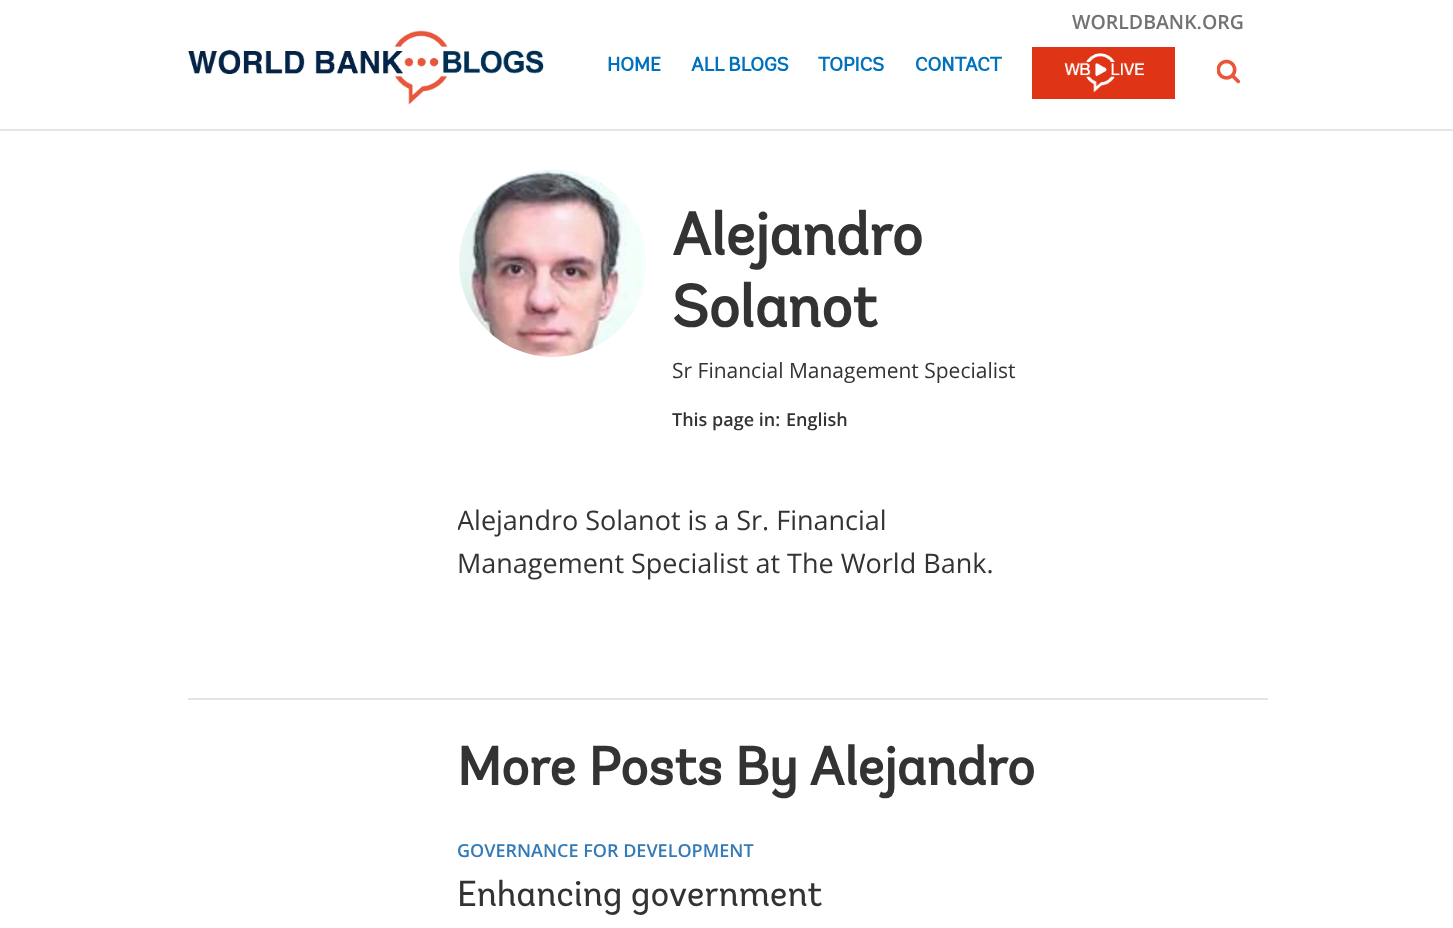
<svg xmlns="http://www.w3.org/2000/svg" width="1453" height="928">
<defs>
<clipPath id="clip1"><rect x="458" y="498" width="592" height="87"/></clipPath>
</defs>
<rect width="100%" height="100%" fill="#fff"/>
<rect y="129" width="1453" height="2" fill="#e5e5e5"/>
<text x="1072" y="29" style="font-family:Open Sans;font-size:19.5px;font-weight:600;fill:#727272">WORLDBANK.ORG</text>
<image x="188" y="30" width="356" height="75" href="media/1.png"/>
<text x="607" y="71" style="font-family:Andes;font-size:19.5px;font-weight:bold;fill:#0071bc">HOME</text>
<text x="691" y="71" style="font-family:Andes;font-size:19.5px;font-weight:bold;fill:#0071bc">ALL BLOGS</text>
<text x="818" y="71" style="font-family:Andes;font-size:19.5px;font-weight:bold;fill:#0071bc">TOPICS</text>
<text x="915" y="71" style="font-family:Andes;font-size:19.5px;font-weight:bold;fill:#0071bc">CONTACT</text>
<rect x="1032" y="47" width="143" height="52" fill="#df3416"/>
<image x="1064" y="53" width="80" height="40" href="media/2.png"/>
<image x="1217" y="59" width="24" height="25" href="media/3.png"/>
<image x="459" y="169" width="187" height="188" href="media/4.png"/>
<text x="672" y="255" style="font-family:Andes;font-size:60px;font-weight:bold;fill:#333">Alejandro</text>
<text x="672" y="327" style="font-family:Andes;font-size:60px;font-weight:bold;fill:#333">Solanot</text>
<text x="672" y="378" style="font-family:Open Sans;font-size:21px;fill:#333">Sr Financial Management Specialist</text>
<text x="672" y="426" style="font-family:Open Sans;font-size:18px;font-weight:600;fill:#333">This page in:</text>
<text x="786" y="426" style="font-family:Open Sans;font-size:18px;font-weight:600;fill:#333">English</text>
<g clip-path="url(#clip1)">
<text x="457" y="530" style="font-family:Open Sans;font-size:27px;fill:#333">Alejandro Solanot is a Sr. Financial</text>
</g>
<text x="457" y="573" style="font-family:Open Sans;font-size:27px;fill:#333">Management Specialist at The World Bank.</text>
<rect x="188" y="698" width="1080" height="2" fill="#e3e3e3"/>
<text x="457" y="785" style="font-family:Andes;font-size:54px;font-weight:bold;fill:#333">More Posts By Alejandro</text>
<text x="457" y="857" style="font-family:Open Sans;font-size:18px;font-weight:600;fill:#337ab7">GOVERNANCE FOR DEVELOPMENT</text>
<text x="457" y="906" style="font-family:Andes;font-size:36px;fill:#333">Enhancing government</text>
</svg>
